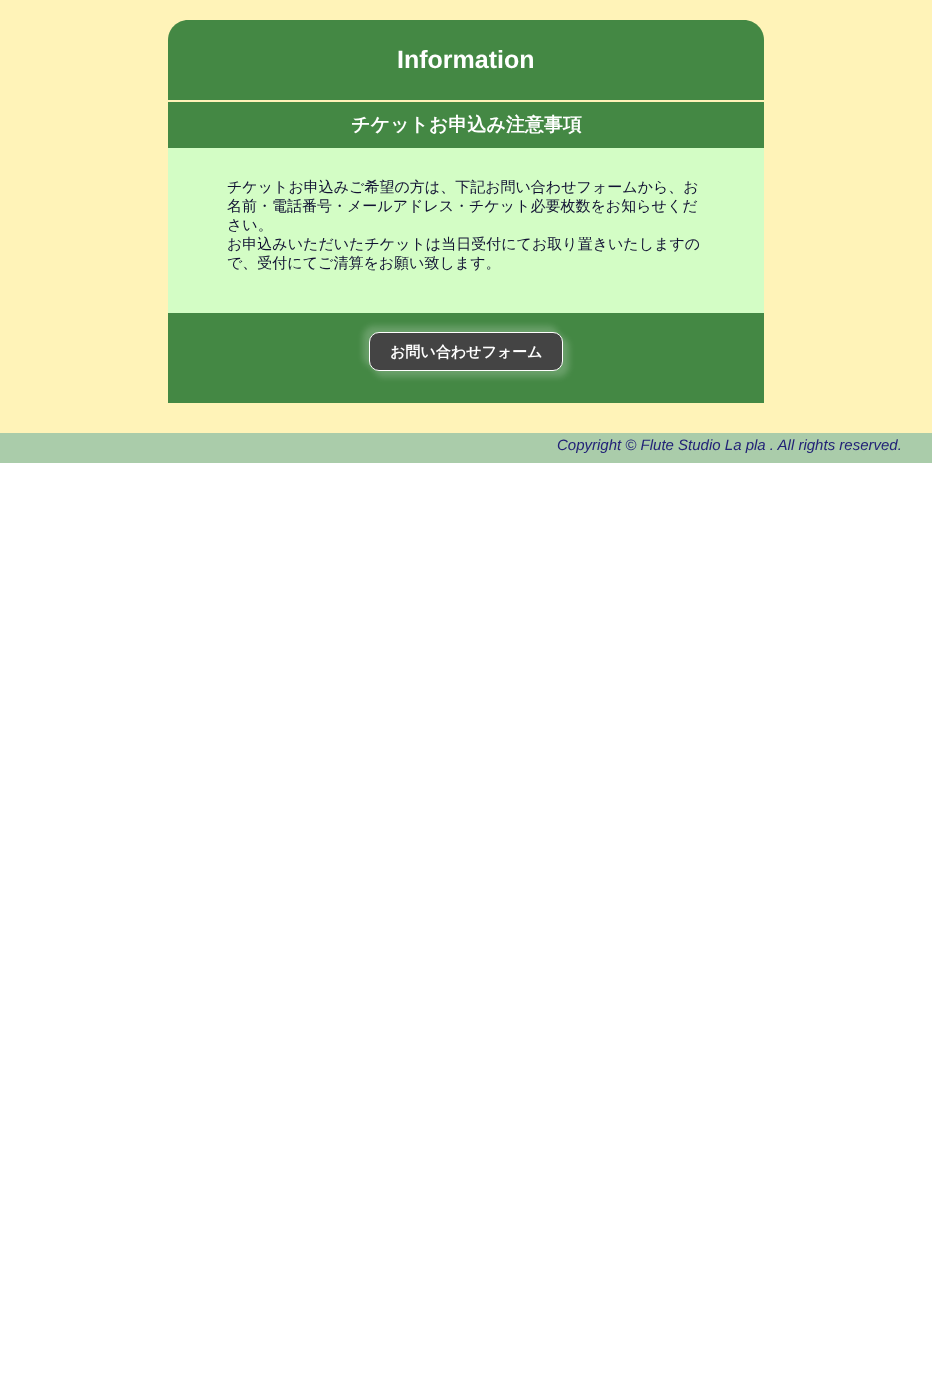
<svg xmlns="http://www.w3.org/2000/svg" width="932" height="1376">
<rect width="100%" height="100%" fill="#fff"/>
<rect width="932" height="433" fill="#fff3b8"/>
<path d="M188 20h556c11 0 20 9 20 20v60h-596v-60c0-11 9-20 20-20z" fill="#484"/>
<text x="397" y="68" style="font-family:Liberation Sans;font-size:25px;font-weight:bold;fill:#fff">Information</text>
<rect x="168" y="102" width="596" height="46" fill="#484"/>
<text x="351" y="131" style="font-family:WenQuanYi Zen Hei;font-size:19px;font-weight:bold;fill:#fff">チケットお申込み注意事項</text>
<rect x="168" y="148" width="596" height="165" fill="#d3fdc5"/>
<text x="227" y="192" style="font-family:WenQuanYi Zen Hei;font-size:15px;font-weight:500;fill:#113">チケットお申込みご希望の方は、下記お問い合わせフォームから、お</text>
<text x="227" y="211" style="font-family:WenQuanYi Zen Hei;font-size:15px;font-weight:500;fill:#113">名前・電話番号・メールアドレス・チケット必要枚数をお知らせくだ</text>
<text x="227" y="230" style="font-family:WenQuanYi Zen Hei;font-size:15px;font-weight:500;fill:#113">さい。</text>
<text x="227" y="249" style="font-family:WenQuanYi Zen Hei;font-size:15px;font-weight:500;fill:#113">お申込みいただいたチケットは当日受付にてお取り置きいたしますの</text>
<text x="227" y="268" style="font-family:WenQuanYi Zen Hei;font-size:15px;font-weight:500;fill:#113">で、受付にてご清算をお願い致します。</text>
<rect x="168" y="313" width="596" height="90" fill="#484"/>
<rect x="373" y="336" width="196" height="41" rx="11" fill="#ffffff33" filter="blur(3px)"/>
<rect x="363" y="326" width="196" height="41" rx="11" fill="#ffffff33" filter="blur(3px)"/>
<rect x="369.5" y="332.5" width="193" height="38" rx="9.5" fill="#444" stroke="#fff"/>
<text x="390" y="357" style="font-family:WenQuanYi Zen Hei;font-size:15px;font-weight:bold;fill:#fff">お問い合わせフォーム</text>
<rect y="433" width="932" height="30" fill="#aca"/>
<text x="557" y="450" style="font-family:Liberation Sans;font-size:15px;font-style:italic;fill:#227">Copyright © Flute Studio La pla . All rights reserved.</text>
</svg>
